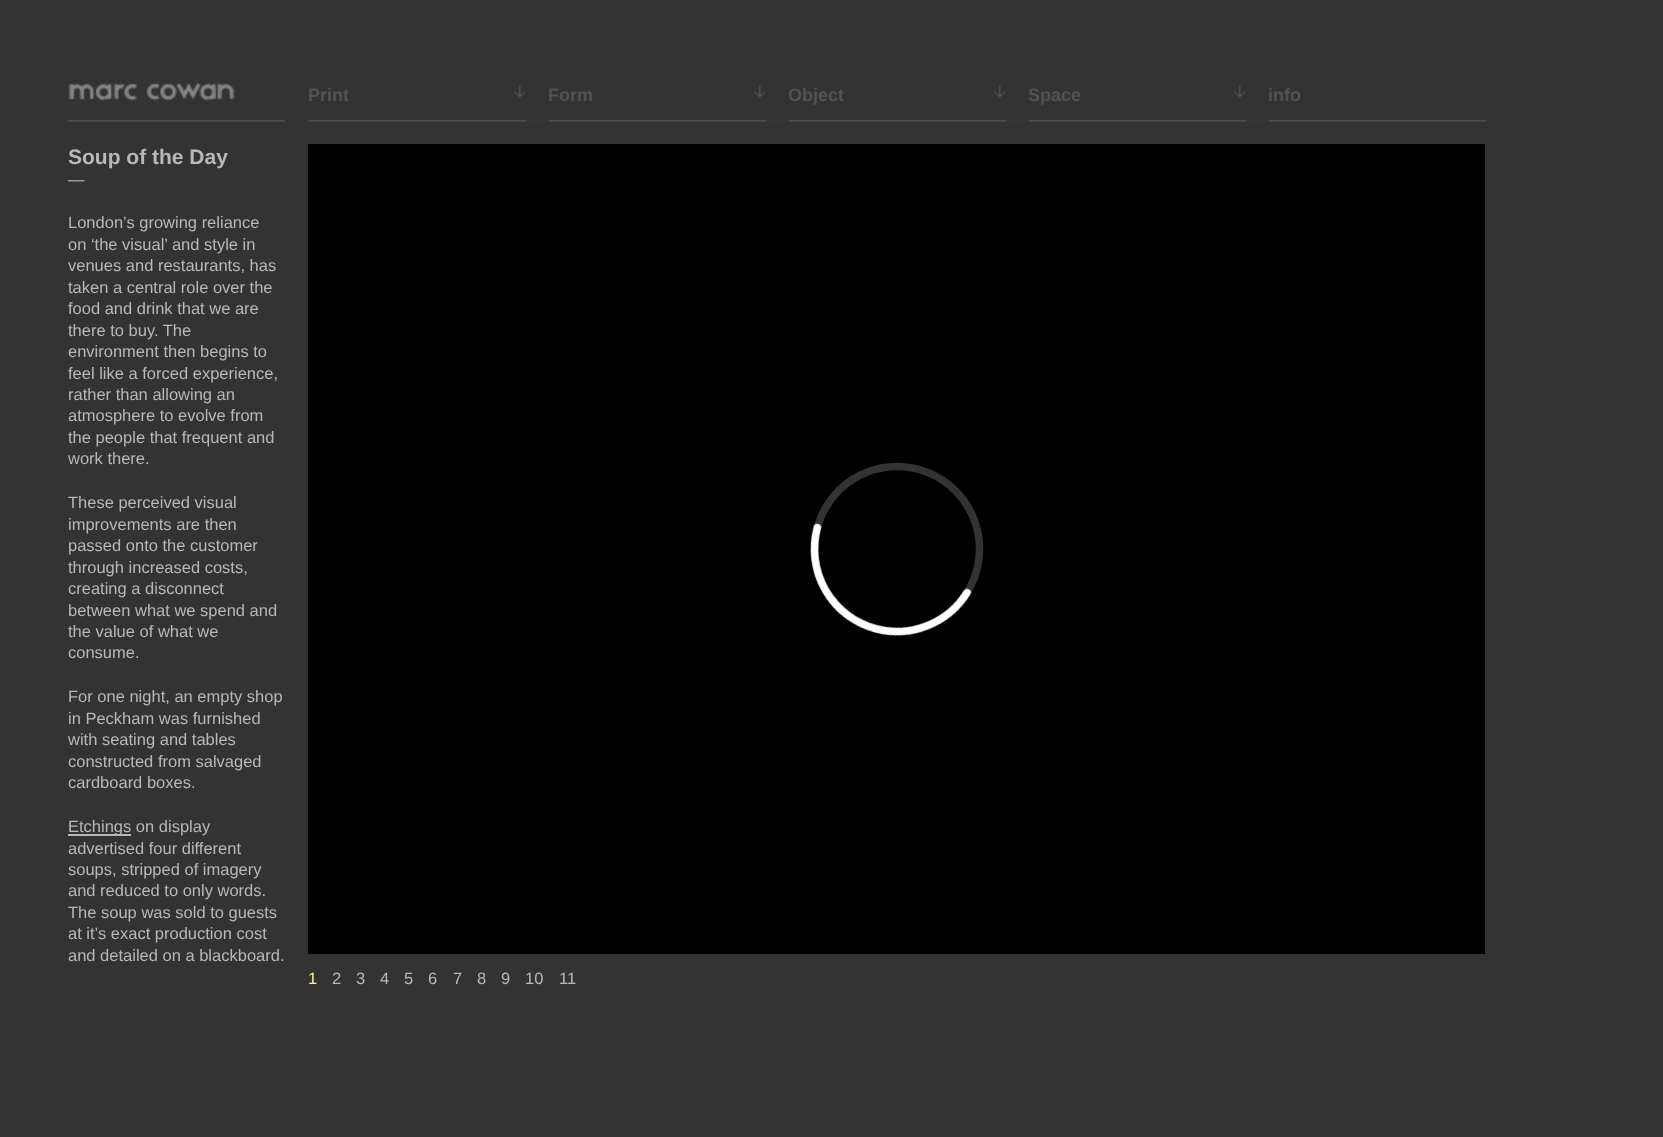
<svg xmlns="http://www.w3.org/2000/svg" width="1663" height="1137">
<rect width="100%" height="100%" fill="#333"/>
<image x="67" y="120" width="1418" height="2" href="media/1.png"/>
<rect x="68" y="121" width="217" height="1" fill="#464646"/>
<image x="68" y="82" width="167" height="19" href="media/2.png"/>
<image x="307" y="120" width="241" height="2" href="media/3.png"/>
<image x="514" y="85" width="11" height="13" href="media/4.png"/>
<text x="308" y="101" style="font-family:Liberation Sans;font-size:18px;font-weight:bold;fill:#525252">Print</text>
<image x="547" y="120" width="241" height="2" href="media/5.png"/>
<image x="754" y="85" width="11" height="13" href="media/4.png"/>
<text x="548" y="101" style="font-family:Liberation Sans;font-size:18px;font-weight:bold;fill:#525252">Form</text>
<image x="787" y="120" width="241" height="2" href="media/6.png"/>
<image x="994" y="85" width="11" height="13" href="media/7.png"/>
<text x="788" y="101" style="font-family:Liberation Sans;font-size:18px;font-weight:bold;fill:#525252">Object</text>
<image x="1027" y="120" width="241" height="2" href="media/6.png"/>
<image x="1234" y="85" width="11" height="13" href="media/7.png"/>
<text x="1028" y="101" style="font-family:Liberation Sans;font-size:18px;font-weight:bold;fill:#525252">Space</text>
<image x="1267" y="120" width="220" height="2" href="media/8.png"/>
<text x="1268" y="101" style="font-family:Liberation Sans;font-size:18px;font-weight:bold;fill:#525252">info</text>
<text x="68" y="164" style="font-family:Liberation Sans;font-size:21px;font-weight:bold;fill:#b8b8b8">Soup of the Day</text>
<text x="68" y="185" style="font-family:Liberation Sans;font-size:16.5px;fill:#b8b8b8">—</text>
<text x="68" y="228" style="font-family:Liberation Sans;font-size:16.5px;fill:#b8b8b8">London’s growing reliance</text>
<text x="68" y="250" style="font-family:Liberation Sans;font-size:16.5px;fill:#b8b8b8">on ‘the visual’ and style in</text>
<text x="68" y="271" style="font-family:Liberation Sans;font-size:16.5px;fill:#b8b8b8">venues and restaurants, has</text>
<text x="68" y="293" style="font-family:Liberation Sans;font-size:16.5px;fill:#b8b8b8">taken a central role over the</text>
<text x="68" y="314" style="font-family:Liberation Sans;font-size:16.5px;fill:#b8b8b8">food and drink that we are</text>
<text x="68" y="336" style="font-family:Liberation Sans;font-size:16.5px;fill:#b8b8b8">there to buy. The</text>
<text x="68" y="357" style="font-family:Liberation Sans;font-size:16.5px;fill:#b8b8b8">environment then begins to</text>
<text x="68" y="379" style="font-family:Liberation Sans;font-size:16.5px;fill:#b8b8b8">feel like a forced experience,</text>
<text x="68" y="400" style="font-family:Liberation Sans;font-size:16.5px;fill:#b8b8b8">rather than allowing an</text>
<text x="68" y="421" style="font-family:Liberation Sans;font-size:16.5px;fill:#b8b8b8">atmosphere to evolve from</text>
<text x="68" y="443" style="font-family:Liberation Sans;font-size:16.5px;fill:#b8b8b8">the people that frequent and</text>
<text x="68" y="464" style="font-family:Liberation Sans;font-size:16.5px;fill:#b8b8b8">work there.</text>
<text x="68" y="508" style="font-family:Liberation Sans;font-size:16.5px;fill:#b8b8b8">These perceived visual</text>
<text x="68" y="530" style="font-family:Liberation Sans;font-size:16.5px;fill:#b8b8b8">improvements are then</text>
<text x="68" y="551" style="font-family:Liberation Sans;font-size:16.5px;fill:#b8b8b8">passed onto the customer</text>
<text x="68" y="573" style="font-family:Liberation Sans;font-size:16.5px;fill:#b8b8b8">through increased costs,</text>
<text x="68" y="594" style="font-family:Liberation Sans;font-size:16.5px;fill:#b8b8b8">creating a disconnect</text>
<text x="68" y="616" style="font-family:Liberation Sans;font-size:16.5px;fill:#b8b8b8">between what we spend and</text>
<text x="68" y="637" style="font-family:Liberation Sans;font-size:16.5px;fill:#b8b8b8">the value of what we</text>
<text x="68" y="658" style="font-family:Liberation Sans;font-size:16.5px;fill:#b8b8b8">consume.</text>
<text x="68" y="702" style="font-family:Liberation Sans;font-size:16.5px;fill:#b8b8b8">For one night, an empty shop</text>
<text x="68" y="724" style="font-family:Liberation Sans;font-size:16.5px;fill:#b8b8b8">in Peckham was furnished</text>
<text x="68" y="745" style="font-family:Liberation Sans;font-size:16.5px;fill:#b8b8b8">with seating and tables</text>
<text x="68" y="767" style="font-family:Liberation Sans;font-size:16.5px;fill:#b8b8b8">constructed from salvaged</text>
<text x="68" y="788" style="font-family:Liberation Sans;font-size:16.5px;fill:#b8b8b8">cardboard boxes.</text>
<rect x="68" y="834" width="63" height="2" fill="#b8b8b8"/>
<text x="68" y="832" style="font-family:Liberation Sans;font-size:16.5px;fill:#b8b8b8">Etchings on display</text>
<text x="68" y="854" style="font-family:Liberation Sans;font-size:16.5px;fill:#b8b8b8">advertised four different</text>
<text x="68" y="875" style="font-family:Liberation Sans;font-size:16.5px;fill:#b8b8b8">soups, stripped of imagery</text>
<text x="68" y="896" style="font-family:Liberation Sans;font-size:16.5px;fill:#b8b8b8">and reduced to only words.</text>
<text x="68" y="918" style="font-family:Liberation Sans;font-size:16.5px;fill:#b8b8b8">The soup was sold to guests</text>
<text x="68" y="939" style="font-family:Liberation Sans;font-size:16.5px;fill:#b8b8b8">at it’s exact production cost</text>
<text x="68" y="961" style="font-family:Liberation Sans;font-size:16.5px;fill:#b8b8b8">and detailed on a blackboard.</text>
<image x="307" y="144" width="1178" height="810" href="media/9.png"/>
<text x="308" y="984" style="font-family:Liberation Sans;font-size:16.5px;fill:#fff18f">1</text>
<text x="332" y="984" style="font-family:Liberation Sans;font-size:16.5px;fill:#b8b8b8">2</text>
<text x="356" y="984" style="font-family:Liberation Sans;font-size:16.5px;fill:#b8b8b8">3</text>
<text x="380" y="984" style="font-family:Liberation Sans;font-size:16.5px;fill:#b8b8b8">4</text>
<text x="404" y="984" style="font-family:Liberation Sans;font-size:16.5px;fill:#b8b8b8">5</text>
<text x="428" y="984" style="font-family:Liberation Sans;font-size:16.5px;fill:#b8b8b8">6</text>
<text x="453" y="984" style="font-family:Liberation Sans;font-size:16.5px;fill:#b8b8b8">7</text>
<text x="477" y="984" style="font-family:Liberation Sans;font-size:16.5px;fill:#b8b8b8">8</text>
<text x="501" y="984" style="font-family:Liberation Sans;font-size:16.5px;fill:#b8b8b8">9</text>
<text x="525" y="984" style="font-family:Liberation Sans;font-size:16.5px;fill:#b8b8b8">10</text>
<text x="559" y="984" style="font-family:Liberation Sans;font-size:16.5px;fill:#b8b8b8">11</text>
</svg>
